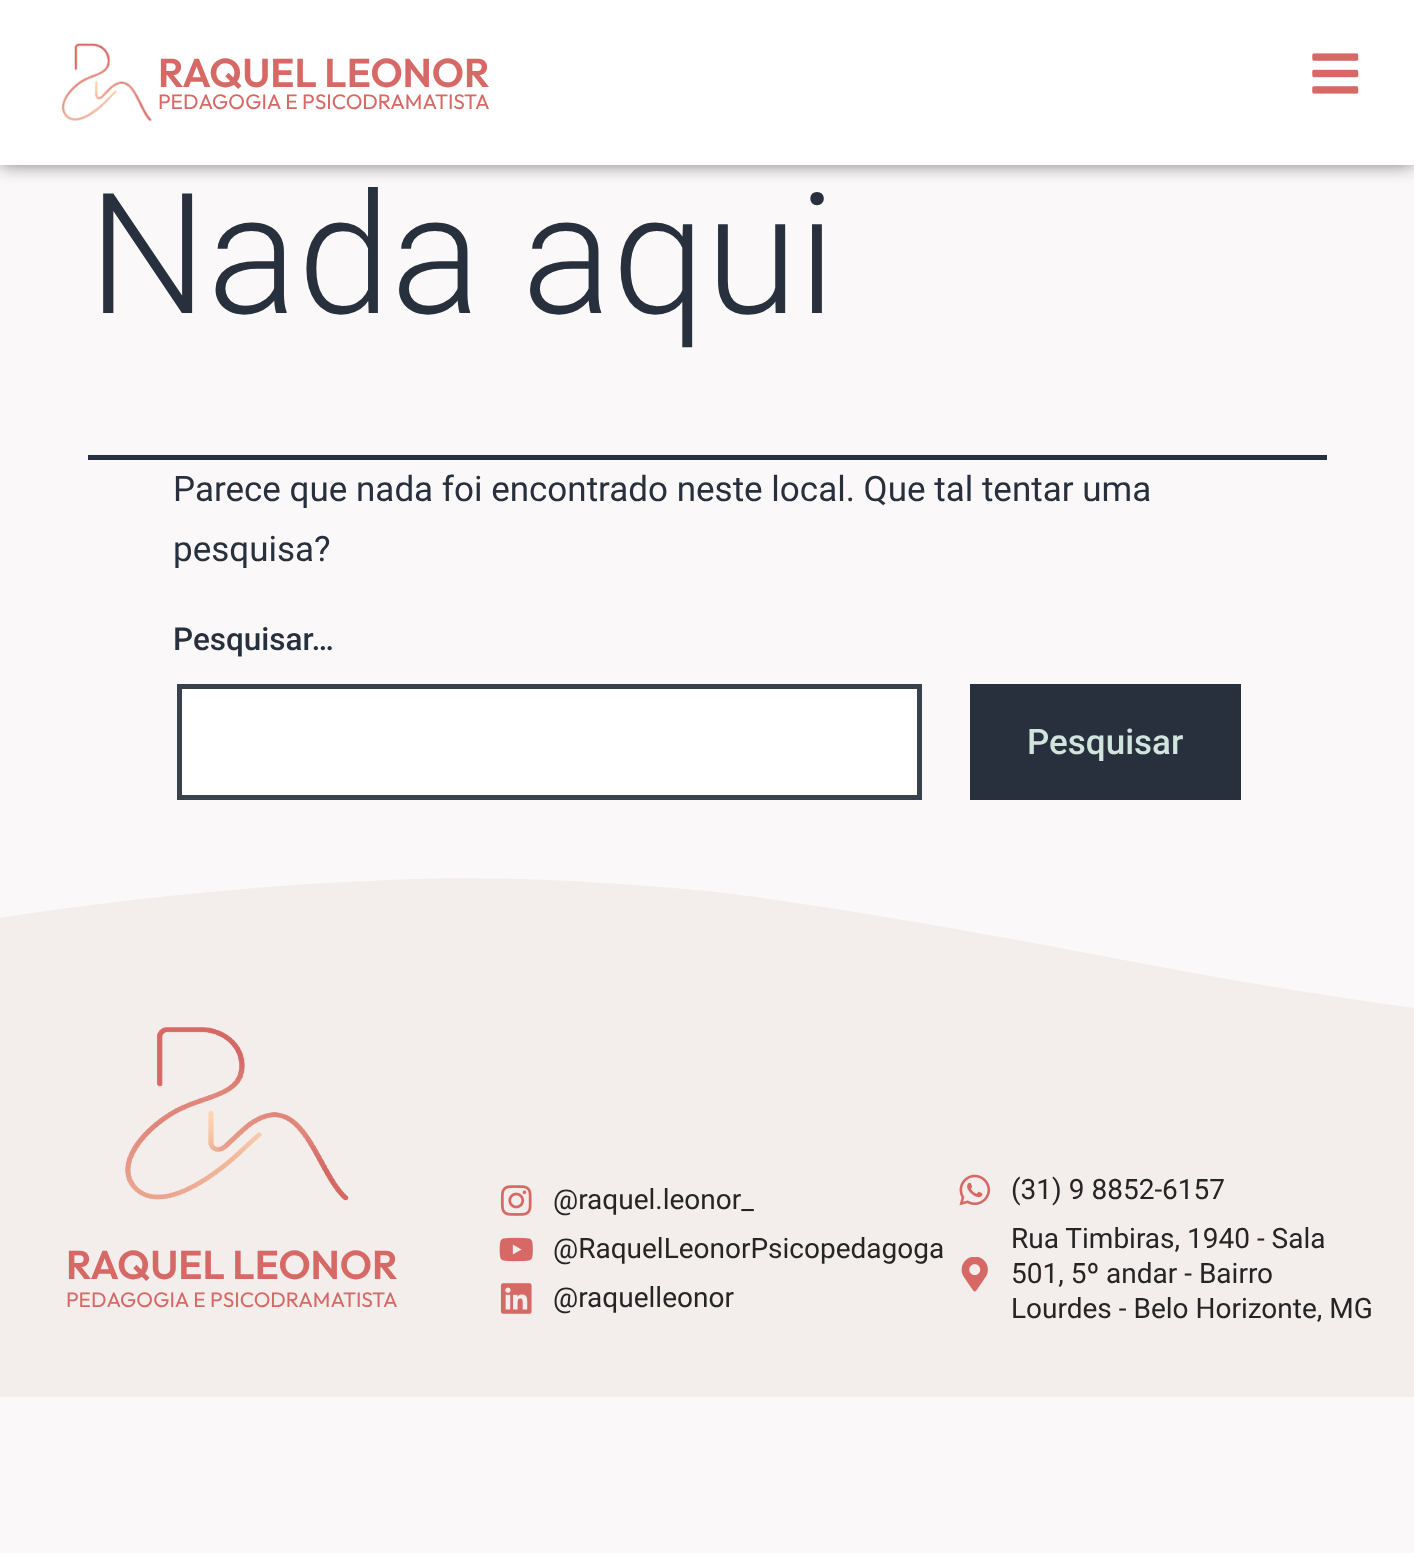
<svg xmlns="http://www.w3.org/2000/svg" width="1414" height="1553">
<rect width="100%" height="100%" fill="#fbf8f9"/>
<rect width="1414" height="165" fill="#00000080" filter="blur(9px)"/>
<rect width="1414" height="165" fill="#fff"/>
<image x="61" y="43" width="91" height="79" href="media/1.png"/>
<text x="158" y="87" style="font-family:Outfit;font-size:40.25px;font-weight:600;fill:#d66965">RAQUEL LEONOR</text>
<text x="158" y="109" style="font-family:Outfit;font-size:21px;fill:#d66965">PEDAGOGIA E PSICODRAMATISTA</text>
<image x="1312" y="53" width="47" height="41" href="media/2.png"/>
<rect x="88" y="455" width="1239" height="5" fill="#28303d"/>
<text x="88" y="313" style="font-family:Roboto;font-size:168px;font-weight:300;fill:#28303d">Nada aqui</text>
<text x="173" y="501" style="font-family:Roboto;font-size:35px;fill:#28303d">Parece que nada foi encontrado neste local. Que tal tentar uma</text>
<text x="173" y="561" style="font-family:Roboto;font-size:35px;fill:#28303d">pesquisa?</text>
<text x="173" y="650" style="font-family:Roboto;font-size:31.5px;font-weight:500;fill:#28303d">Pesquisar…</text>
<rect x="179.5" y="686.5" width="740" height="111" fill="#fff" stroke="#39414d" stroke-width="5"/>
<rect x="970" y="684" width="271" height="116" fill="#28303d"/>
<text x="1027" y="754" style="font-family:Roboto;font-size:35px;font-weight:500;fill:#d1e4dd">Pesquisar</text>
<rect y="878" width="1414" height="519" fill="#f3edeb"/>
<path d="M391 880c91-5 208 1 305 10c96 9 287 43 407 66c307 60 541 83 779 92c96 4 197 7 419-4c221-11 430-48 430-48v-128h-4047v56c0 0 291 61 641 57c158-2 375-13 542-42c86-15 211-34 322-45c111-11 160-12 202-14z" fill="#fbf8f9"/>
<image x="125" y="1027" width="224" height="174" href="media/3.png"/>
<text x="66" y="1279" style="font-family:Outfit;font-size:40.25px;font-weight:600;fill:#d66965">RAQUEL LEONOR</text>
<text x="66" y="1307" style="font-family:Outfit;font-size:21px;fill:#d66965">PEDAGOGIA E PSICODRAMATISTA</text>
<image x="500" y="1185" width="32" height="31" href="media/4.png"/>
<text x="553" y="1209" style="font-family:Roboto;font-size:28px;fill:#252525">@raquel.leonor_</text>
<image x="499" y="1237" width="34" height="25" href="media/5.png"/>
<text x="553" y="1258" style="font-family:Roboto;font-size:28px;fill:#252525">@RaquelLeonorPsicopedagoga</text>
<image x="500" y="1283" width="32" height="31" href="media/6.png"/>
<text x="553" y="1307" style="font-family:Roboto;font-size:28px;fill:#252525">@raquelleonor</text>
<image x="959" y="1174" width="32" height="32" href="media/7.png"/>
<text x="1011" y="1199" style="font-family:Roboto;font-size:28px;fill:#252525">(31) 9 8852-6157</text>
<image x="961" y="1257" width="27" height="35" href="media/8.png"/>
<text x="1011" y="1248" style="font-family:Roboto;font-size:28px;fill:#252525">Rua Timbiras, 1940 - Sala</text>
<text x="1011" y="1283" style="font-family:Roboto;font-size:28px;fill:#252525">501, 5º andar - Bairro</text>
<text x="1011" y="1318" style="font-family:Roboto;font-size:28px;fill:#252525">Lourdes - Belo Horizonte, MG</text>
</svg>
